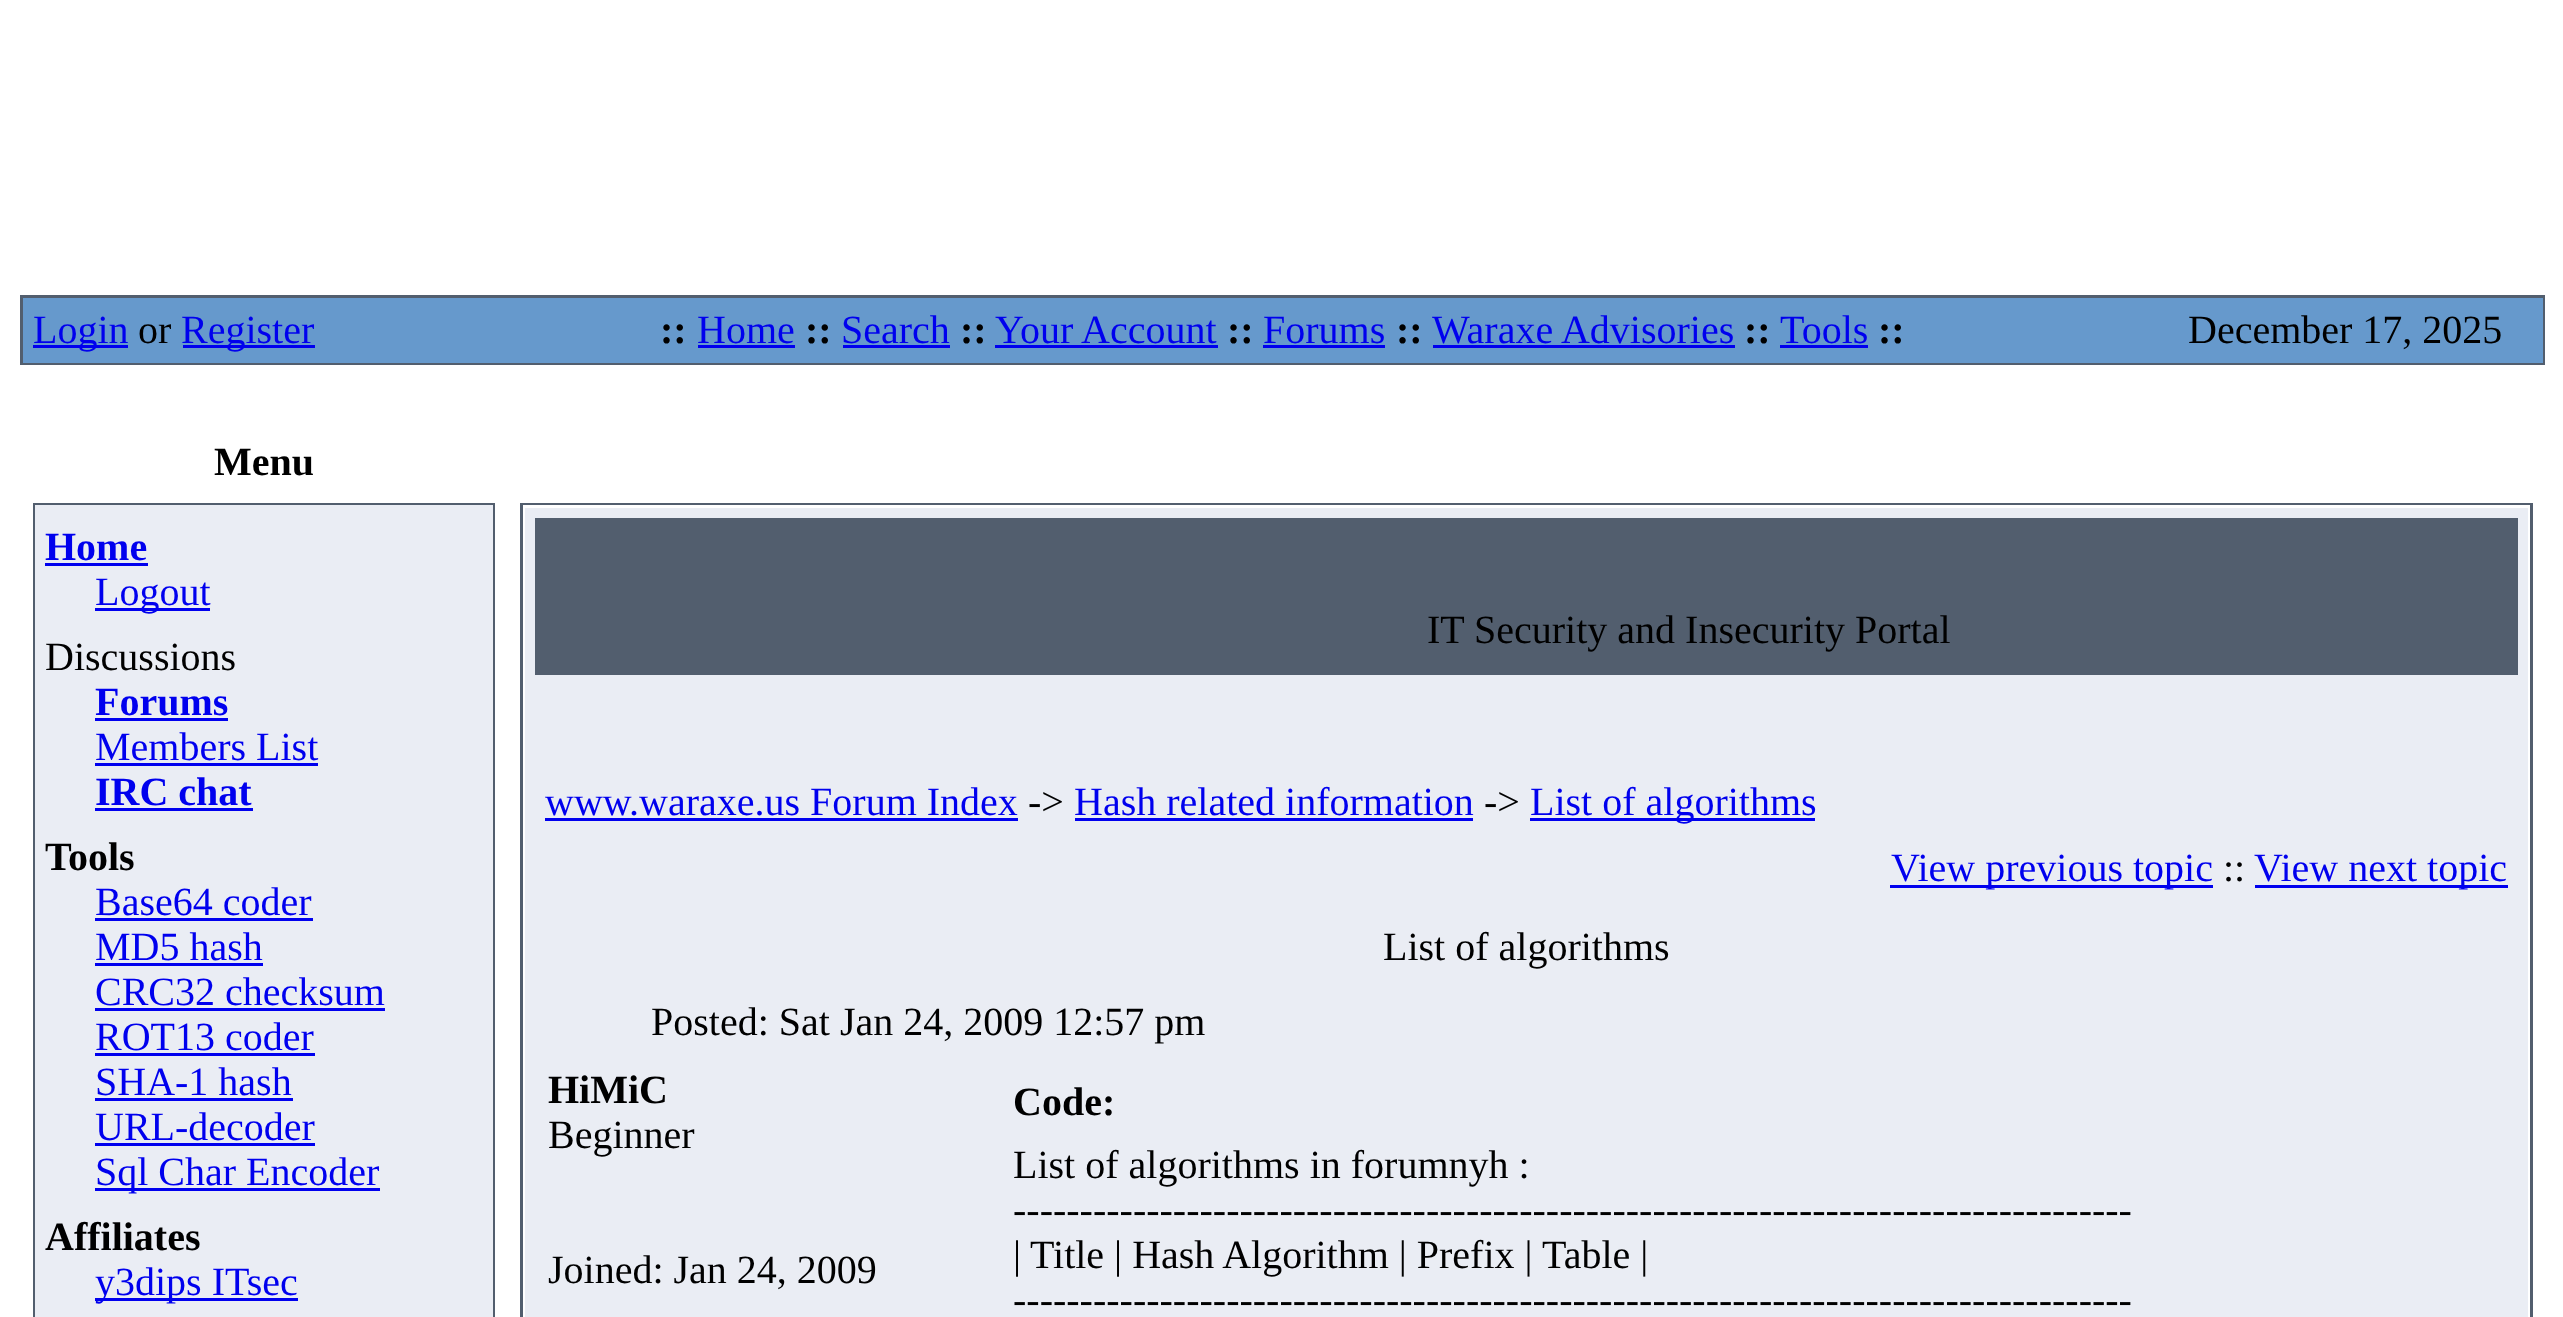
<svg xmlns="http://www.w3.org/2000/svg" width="2563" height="1317">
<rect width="100%" height="100%" fill="#fff"/>
<rect x="20" y="295" width="2525" height="70" fill="#525e6e"/>
<rect x="23" y="298" width="2520" height="65" fill="#69c"/>
<rect x="33" y="345" width="95" height="3" fill="#00e"/>
<text x="33" y="343" style="font-family:Liberation Serif;font-size:40px;fill:#00e">Login</text>
<text x="138" y="343" style="font-family:Liberation Serif;font-size:40px;fill:#000">or</text>
<rect x="183" y="345" width="132" height="3" fill="#00e"/>
<text x="181" y="343" style="font-family:Liberation Serif;font-size:40px;fill:#00e">Register</text>
<text x="660" y="343" style="font-family:Liberation Serif;font-size:40px;font-weight:bold;fill:#000">::</text>
<text x="697" y="343" style="font-family:Liberation Serif;font-size:40px;fill:#00e">Home</text>
<rect x="698" y="345" width="97" height="3" fill="#00e"/>
<text x="805" y="343" style="font-family:Liberation Serif;font-size:40px;font-weight:bold;fill:#000">::</text>
<text x="841" y="343" style="font-family:Liberation Serif;font-size:40px;fill:#00e">Search</text>
<rect x="843" y="345" width="107" height="3" fill="#00e"/>
<text x="960" y="343" style="font-family:Liberation Serif;font-size:40px;font-weight:bold;fill:#000">::</text>
<text x="995" y="343" style="font-family:Liberation Serif;font-size:40px;fill:#00e">Your Account</text>
<rect x="995" y="345" width="223" height="3" fill="#00e"/>
<text x="1227" y="343" style="font-family:Liberation Serif;font-size:40px;font-weight:bold;fill:#000">::</text>
<text x="1263" y="343" style="font-family:Liberation Serif;font-size:40px;fill:#00e">Forums</text>
<rect x="1263" y="345" width="122" height="3" fill="#00e"/>
<text x="1396" y="343" style="font-family:Liberation Serif;font-size:40px;font-weight:bold;fill:#000">::</text>
<text x="1432" y="343" style="font-family:Liberation Serif;font-size:40px;fill:#00e">Waraxe Advisories</text>
<rect x="1433" y="345" width="302" height="3" fill="#00e"/>
<text x="1744" y="343" style="font-family:Liberation Serif;font-size:40px;font-weight:bold;fill:#000">::</text>
<text x="1780" y="343" style="font-family:Liberation Serif;font-size:40px;fill:#00e">Tools</text>
<rect x="1780" y="345" width="88" height="3" fill="#00e"/>
<text x="1878" y="343" style="font-family:Liberation Serif;font-size:40px;font-weight:bold;fill:#000">::</text>
<text x="2188" y="343" style="font-family:Liberation Serif;font-size:40px;fill:#000">December 17, 2025</text>
<text x="214" y="475" style="font-family:Liberation Serif;font-size:40px;font-weight:bold;fill:#000">Menu</text>
<rect x="33" y="503" width="462" height="814" fill="#525e6e"/>
<rect x="35" y="505" width="458" height="812" fill="#eaedf4"/>
<text x="45" y="560" style="font-family:Liberation Serif;font-size:40px;font-weight:bold;fill:#00e">Home</text>
<rect x="45" y="563" width="103" height="3" fill="#00e"/>
<rect x="95" y="608" width="115" height="3" fill="#00e"/>
<text x="95" y="605" style="font-family:Liberation Serif;font-size:40px;fill:#00e">Logout</text>
<text x="45" y="670" style="font-family:Liberation Serif;font-size:40px;fill:#000">Discussions</text>
<text x="95" y="715" style="font-family:Liberation Serif;font-size:40px;font-weight:bold;fill:#00e">Forums</text>
<rect x="95" y="718" width="133" height="3" fill="#00e"/>
<text x="95" y="760" style="font-family:Liberation Serif;font-size:40px;fill:#00e">Members List</text>
<rect x="95" y="763" width="223" height="3" fill="#00e"/>
<text x="95" y="805" style="font-family:Liberation Serif;font-size:40px;font-weight:bold;fill:#00e">IRC chat</text>
<rect x="95" y="808" width="158" height="3" fill="#00e"/>
<text x="45" y="870" style="font-family:Liberation Serif;font-size:40px;font-weight:bold;fill:#000">Tools</text>
<text x="95" y="915" style="font-family:Liberation Serif;font-size:40px;fill:#00e">Base64 coder</text>
<rect x="95" y="918" width="218" height="3" fill="#00e"/>
<text x="95" y="960" style="font-family:Liberation Serif;font-size:40px;fill:#00e">MD5 hash</text>
<rect x="95" y="963" width="168" height="3" fill="#00e"/>
<text x="95" y="1005" style="font-family:Liberation Serif;font-size:40px;fill:#00e">CRC32 checksum</text>
<rect x="95" y="1008" width="290" height="3" fill="#00e"/>
<text x="95" y="1050" style="font-family:Liberation Serif;font-size:40px;fill:#00e">ROT13 coder</text>
<rect x="95" y="1053" width="220" height="3" fill="#00e"/>
<text x="95" y="1095" style="font-family:Liberation Serif;font-size:40px;fill:#00e">SHA-1 hash</text>
<rect x="95" y="1098" width="198" height="3" fill="#00e"/>
<text x="95" y="1140" style="font-family:Liberation Serif;font-size:40px;fill:#00e">URL-decoder</text>
<rect x="95" y="1143" width="220" height="3" fill="#00e"/>
<rect x="95" y="1188" width="285" height="3" fill="#00e"/>
<text x="95" y="1185" style="font-family:Liberation Serif;font-size:40px;fill:#00e">Sql Char Encoder</text>
<text x="45" y="1250" style="font-family:Liberation Serif;font-size:40px;font-weight:bold;fill:#000">Affiliates</text>
<rect x="95" y="1298" width="203" height="3" fill="#00e"/>
<text x="95" y="1295" style="font-family:Liberation Serif;font-size:40px;fill:#00e">y3dips ITsec</text>
<rect x="520" y="503" width="2013" height="814" fill="#525e6e"/>
<rect x="523" y="505" width="2007" height="812" fill="#fff"/>
<rect x="525" y="508" width="2003" height="809" fill="#eaedf4"/>
<rect x="535" y="518" width="1983" height="157" fill="#525e6e"/>
<text x="1427" y="643" style="font-family:Liberation Serif;font-size:40px;fill:#000">IT Security and Insecurity Portal</text>
<text x="545" y="815" style="font-family:Liberation Serif;font-size:40px;fill:#00e">www.waraxe.us Forum Index</text>
<rect x="545" y="818" width="473" height="3" fill="#00e"/>
<text x="1028" y="815" style="font-family:Liberation Serif;font-size:40px;fill:#000">-&gt;</text>
<text x="1074" y="815" style="font-family:Liberation Serif;font-size:40px;fill:#00e">Hash related information</text>
<rect x="1075" y="818" width="398" height="3" fill="#00e"/>
<text x="1484" y="815" style="font-family:Liberation Serif;font-size:40px;fill:#000">-&gt;</text>
<rect x="1530" y="818" width="285" height="3" fill="#00e"/>
<text x="1530" y="815" style="font-family:Liberation Serif;font-size:40px;fill:#00e">List of algorithms</text>
<rect x="1890" y="885" width="323" height="3" fill="#00e"/>
<text x="1891" y="881" style="font-family:Liberation Serif;font-size:40px;fill:#00e">View previous topic</text>
<text x="2223" y="881" style="font-family:Liberation Serif;font-size:40px;fill:#000">::</text>
<rect x="2255" y="885" width="253" height="3" fill="#00e"/>
<text x="2254" y="881" style="font-family:Liberation Serif;font-size:40px;fill:#00e">View next topic</text>
<text x="1383" y="960" style="font-family:Liberation Serif;font-size:40px;fill:#000">List of algorithms</text>
<text x="651" y="1035" style="font-family:Liberation Serif;font-size:40px;fill:#000">Posted: Sat Jan 24, 2009 12:57 pm</text>
<text x="548" y="1103" style="font-family:Liberation Serif;font-size:40px;font-weight:bold;fill:#000">HiMiC</text>
<text x="548" y="1148" style="font-family:Liberation Serif;font-size:40px;fill:#000">Beginner</text>
<text x="548" y="1283" style="font-family:Liberation Serif;font-size:40px;fill:#000">Joined: Jan 24, 2009</text>
<text x="1013" y="1115" style="font-family:Liberation Serif;font-size:40px;font-weight:bold;fill:#000">Code:</text>
<text x="1013" y="1178" style="font-family:Liberation Serif;font-size:40px;fill:#000">List of algorithms in forumnyh :</text>
<text x="1013" y="1223" style="font-family:Liberation Serif;font-size:40px;fill:#000">------------------------------------------------------------------------------------</text>
<text x="1013" y="1268" style="font-family:Liberation Serif;font-size:40px;fill:#000">|</text>
<text x="1030" y="1268" style="font-family:Liberation Serif;font-size:40px;fill:#000">Title | Hash Algorithm | Prefix |</text>
<text x="1542" y="1268" style="font-family:Liberation Serif;font-size:40px;fill:#000">Table |</text>
<text x="1013" y="1313" style="font-family:Liberation Serif;font-size:40px;fill:#000">------------------------------------------------------------------------------------</text>
</svg>
